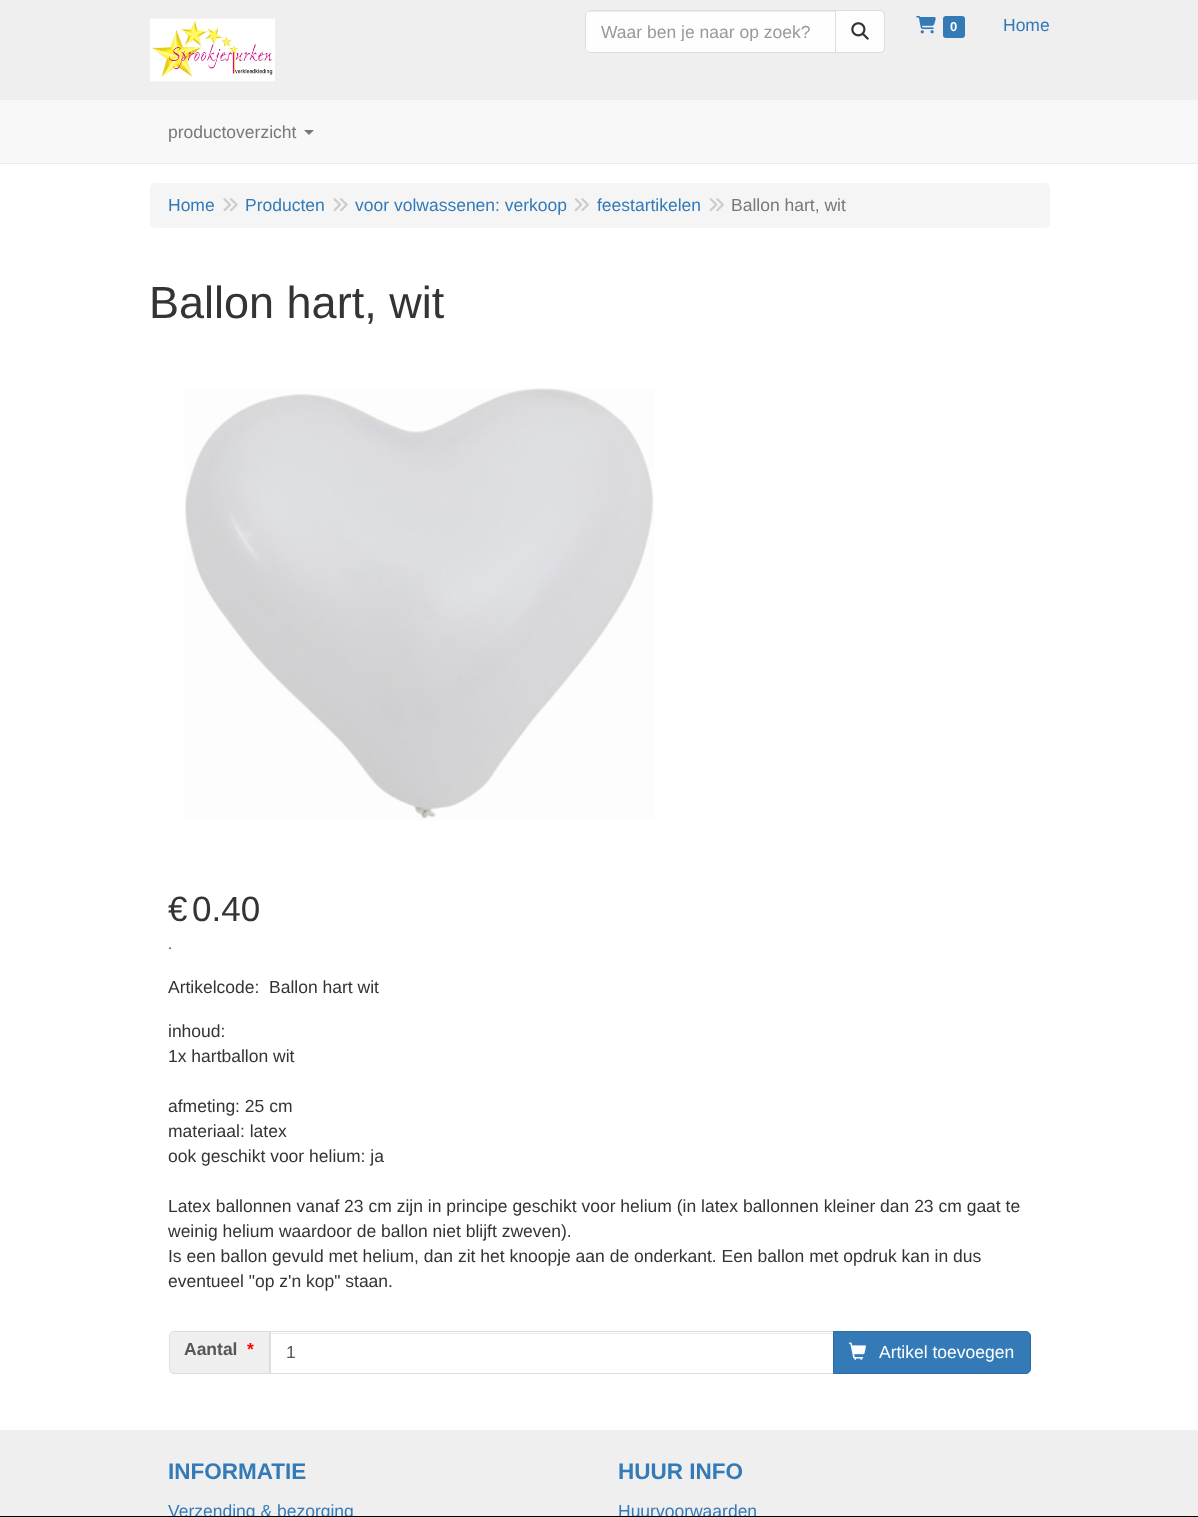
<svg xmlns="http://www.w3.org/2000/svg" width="1198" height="1517">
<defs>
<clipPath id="clip1"><rect x="601" y="21" width="222" height="20"/></clipPath>
</defs>
<rect width="100%" height="100%" fill="#fff"/>
<rect width="1198" height="100" fill="#efefef"/>
<image x="150" y="18" width="125" height="64" href="media/1.png"/>
<path d="M590 10h246v43h-246c-3 0-5-2-5-5v-33c0-3 2-5 5-5z" fill="#fefefe"/>
<path d="M590 12h245v-1h-245c-2 0-4 2-4 4v1c0-2 2-4 4-4z" fill="#ebebeb"/>
<path d="M590 10.5h245.5v42h-245.5c-2.5 0-4.5-2-4.5-4.5v-33c0-2.5 2-4.5 4.5-4.5z" fill="none" stroke="#ddd"/>
<g clip-path="url(#clip1)">
<text x="601" y="38" style="font-family:Liberation Sans;font-size:17.5px;fill:#999">Waar ben je naar op zoek?</text>
</g>
<path d="M835.5 10.5h44.5c2.5 0 4.5 2 4.5 4.5v33c0 2.5-2 4.5-4.5 4.5h-44.5z" fill="#fefefe" stroke="#ddd"/>
<image x="851" y="22" width="18" height="18" href="media/2.png"/>
<image x="916" y="15" width="20" height="19" href="media/3.png"/>
<rect x="943" y="16" width="22" height="22" rx="3" fill="#337ab7"/>
<text x="950" y="31" style="font-family:Liberation Sans;font-size:13px;font-weight:bold;fill:#fff">0</text>
<text x="1003" y="31" style="font-family:Liberation Sans;font-size:17.5px;fill:#337ab7">Home</text>
<rect y="100" width="1198" height="63" fill="#f8f8f8"/>
<rect y="163" width="1198" height="1" fill="#ebebeb"/>
<text x="168" y="138" style="font-family:Liberation Sans;font-size:17.5px;fill:#787878">productoverzicht</text>
<path d="M304 130h10l-5 5z" fill="#787878"/>
<rect x="150" y="183" width="900" height="45" rx="5" fill="#f5f5f5"/>
<text x="168" y="211" style="font-family:Liberation Sans;font-size:17.5px;fill:#337ab7">Home</text>
<image x="223" y="198" width="15" height="14" href="media/4.png"/>
<text x="245" y="211" style="font-family:Liberation Sans;font-size:17.5px;fill:#337ab7">Producten</text>
<image x="333" y="198" width="15" height="14" href="media/4.png"/>
<text x="355" y="211" style="font-family:Liberation Sans;font-size:17.5px;fill:#337ab7">voor volwassenen: verkoop</text>
<image x="574" y="198" width="15" height="14" href="media/5.png"/>
<text x="597" y="211" style="font-family:Liberation Sans;font-size:17.5px;fill:#337ab7">feestartikelen</text>
<image x="709" y="198" width="15" height="14" href="media/5.png"/>
<text x="731" y="211" style="font-family:Liberation Sans;font-size:17.5px;fill:#787878">Ballon hart, wit</text>
<text x="149" y="318" style="font-family:Liberation Sans;font-size:45px;fill:#343434">Ballon hart, wit</text>
<image x="185" y="388" width="469" height="432" href="media/6.png"/>
<text x="168" y="921" style="font-family:Liberation Sans;font-size:35px;fill:#343434">€</text>
<text x="192" y="921" style="font-family:Liberation Sans;font-size:35px;fill:#343434">0.40</text>
<text x="168" y="949" style="font-family:Liberation Sans;font-size:15px;fill:#343434">.</text>
<text x="168" y="993" style="font-family:Liberation Sans;font-size:17.5px;fill:#343434">Artikelcode:</text>
<text x="269" y="993" style="font-family:Liberation Sans;font-size:17.5px;fill:#343434">Ballon hart wit</text>
<text x="168" y="1037" style="font-family:Liberation Sans;font-size:17.5px;fill:#343434">inhoud:</text>
<text x="168" y="1062" style="font-family:Liberation Sans;font-size:17.5px;fill:#343434">1x hartballon wit</text>
<text x="168" y="1112" style="font-family:Liberation Sans;font-size:17.5px;fill:#343434">afmeting: 25 cm</text>
<text x="168" y="1137" style="font-family:Liberation Sans;font-size:17.5px;fill:#343434">materiaal: latex</text>
<text x="168" y="1162" style="font-family:Liberation Sans;font-size:17.5px;fill:#343434">ook geschikt voor helium: ja</text>
<text x="168" y="1212" style="font-family:Liberation Sans;font-size:17.5px;fill:#343434">Latex ballonnen vanaf 23 cm zijn in principe geschikt voor helium (in latex ballonnen kleiner dan 23 cm gaat te</text>
<text x="168" y="1237" style="font-family:Liberation Sans;font-size:17.5px;fill:#343434">weinig helium waardoor de ballon niet blijft zweven).</text>
<text x="168" y="1262" style="font-family:Liberation Sans;font-size:17.5px;fill:#343434">Is een ballon gevuld met helium, dan zit het knoopje aan de onderkant. Een ballon met opdruk kan in dus</text>
<text x="168" y="1287" style="font-family:Liberation Sans;font-size:17.5px;fill:#343434">eventueel "op z'n kop" staan.</text>
<path d="M174 1331.5h95.5v42h-95.5c-2.5 0-4.5-2-4.5-4.5v-33c0-2.5 2-4.5 4.5-4.5z" fill="#efefef" stroke="#ddd"/>
<text x="184" y="1355" style="font-family:Liberation Sans;font-size:17.5px;font-weight:bold;fill:#565656">Aantal</text>
<text x="247" y="1355" style="font-family:Liberation Sans;font-size:17.5px;font-weight:bold;fill:#f00">*</text>
<rect x="271" y="1333" width="562" height="1" fill="#ececec"/>
<rect x="270.5" y="1331.5" width="563" height="42" fill="none" stroke="#ddd"/>
<text x="286" y="1358" style="font-family:Liberation Sans;font-size:17.5px;fill:#565656">1</text>
<path d="M833.5 1331.5h192.5c2.5 0 4.5 2 4.5 4.5v33c0 2.5-2 4.5-4.5 4.5h-192.5z" fill="#337ab7" stroke="#2e6da4"/>
<image x="848" y="1342" width="18" height="18" href="media/7.png"/>
<text x="879" y="1358" style="font-family:Liberation Sans;font-size:17.5px;fill:#fff">Artikel toevoegen</text>
<rect y="1430" width="1198" height="86" fill="#efefef"/>
<text x="168" y="1479" style="font-family:Liberation Sans;font-size:22.5px;font-weight:bold;fill:#337ab7">INFORMATIE</text>
<text x="168" y="1517" style="font-family:Liberation Sans;font-size:17.5px;fill:#337ab7">Verzending &amp; bezorging</text>
<text x="618" y="1479" style="font-family:Liberation Sans;font-size:22.5px;font-weight:bold;fill:#337ab7">HUUR INFO</text>
<text x="618" y="1517" style="font-family:Liberation Sans;font-size:17.5px;fill:#337ab7">Huurvoorwaarden</text>
<rect y="1516" width="1198" height="1" fill="#000"/>
</svg>
